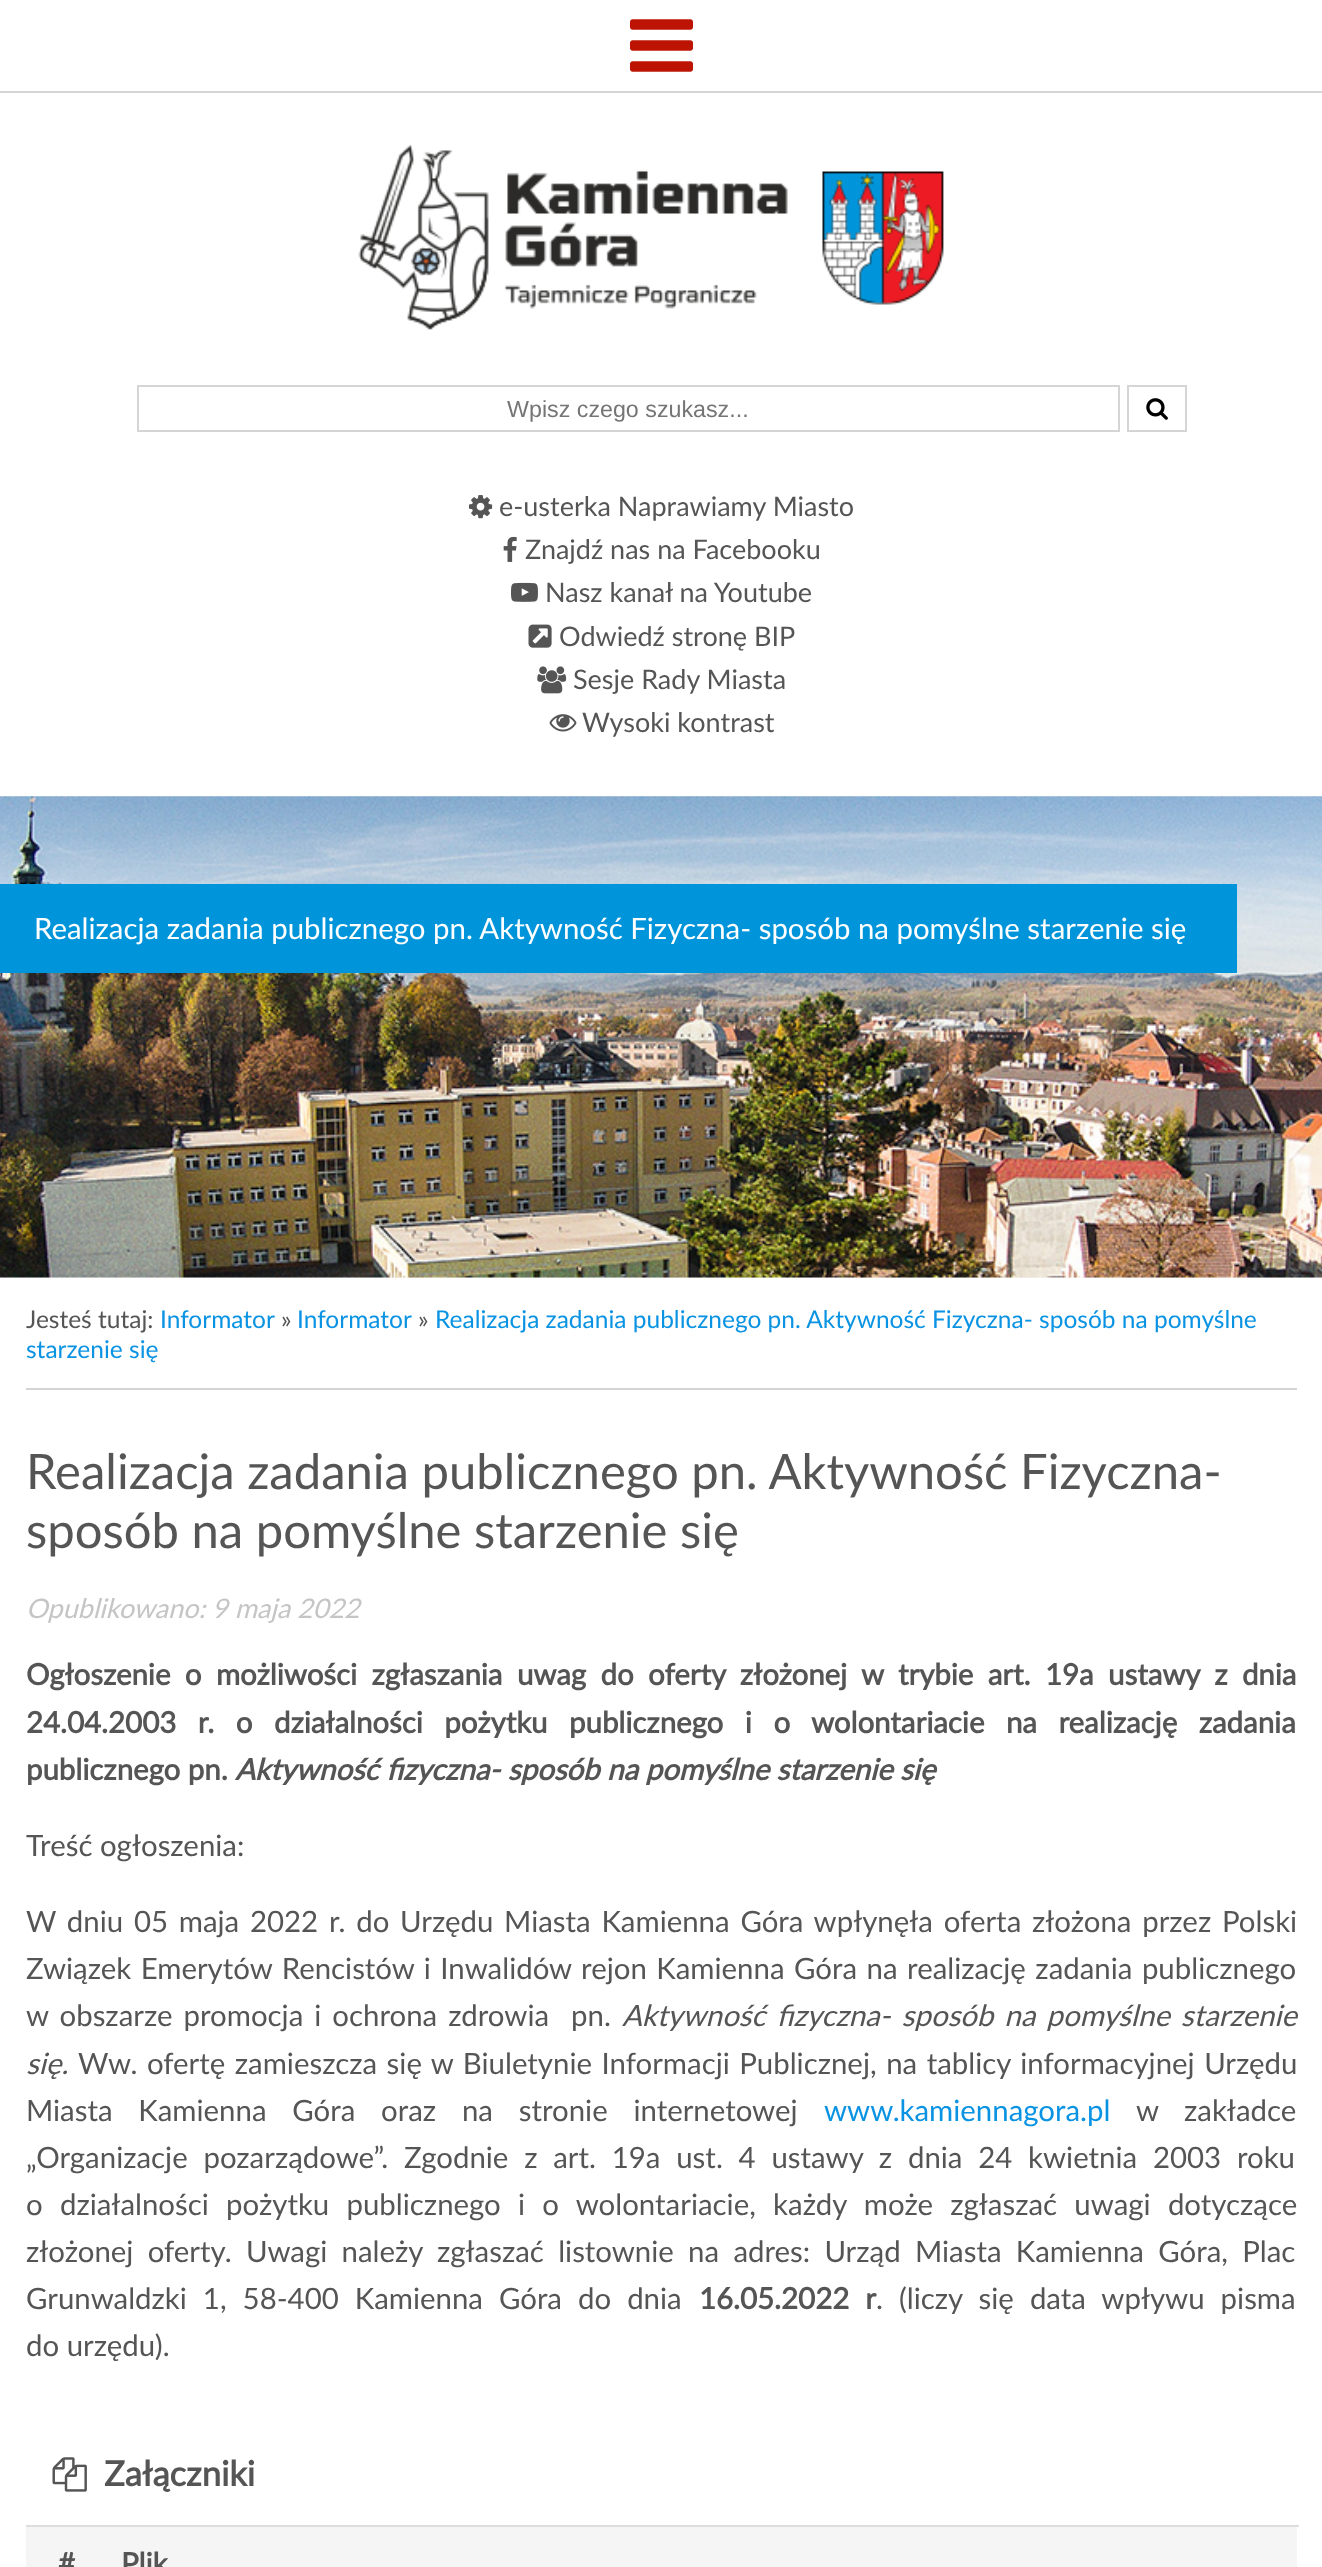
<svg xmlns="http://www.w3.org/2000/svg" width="1322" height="2567">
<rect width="100%" height="100%" fill="#fff"/>
<rect y="91" width="1322" height="2" fill="#d5d5d5"/>
<image x="630" y="19" width="63" height="53" href="media/1.png"/>
<image x="358" y="144" width="586" height="186" href="media/2.png"/>
<rect x="138" y="386" width="981" height="45" fill="none" stroke="#d5d5d5" stroke-width="2"/>
<text x="507" y="417" style="font-family:Liberation Sans;font-size:23.25px;fill:#757575">Wpisz czego szukasz...</text>
<rect x="1128" y="386" width="58" height="45" fill="none" stroke="#d5d5d5" stroke-width="2"/>
<image x="1146" y="398" width="22" height="22" href="media/3.png"/>
<image x="469" y="495" width="24" height="24" href="media/4.png"/>
<text x="499" y="516" style="font-family:Lato;font-size:27px;fill:#555">e-usterka Naprawiamy Miasto</text>
<image x="503" y="536" width="14" height="26" href="media/5.png"/>
<text x="525" y="559" style="font-family:Lato;font-size:27px;fill:#555">Znajdź nas na Facebooku</text>
<image x="511" y="582" width="27" height="20" href="media/6.png"/>
<text x="545" y="602" style="font-family:Lato;font-size:27px;fill:#555">Nasz kanał na Youtube</text>
<image x="528" y="624" width="24" height="24" href="media/7.png"/>
<text x="559" y="646" style="font-family:Lato;font-size:27px;fill:#555">Odwiedź stronę BIP</text>
<image x="537" y="666" width="30" height="28" href="media/8.png"/>
<text x="573" y="689" style="font-family:Lato;font-size:27px;fill:#555">Sesje Rady Miasta</text>
<image x="549" y="714" width="28" height="18" href="media/9.png"/>
<text x="582" y="732" style="font-family:Lato;font-size:27px;fill:#555">Wysoki kontrast</text>
<rect y="796" width="1322" height="482" fill="#f5f5f5"/>
<image x="0" y="796" width="1322" height="482" href="media/10.png"/>
<rect y="884" width="1237" height="89" fill="#0095da"/>
<text x="34" y="939" style="font-family:Lato;font-size:29.4px;fill:#fff">Realizacja zadania publicznego pn. Aktywność Fizyczna- sposób na pomyślne starzenie się</text>
<text x="26" y="1328" style="font-family:Lato;font-size:24.5px;fill:#555">Jesteś tutaj:</text>
<text x="160" y="1328" style="font-family:Lato;font-size:24.5px;fill:#0a93e3">Informator</text>
<text x="281" y="1328" style="font-family:Lato;font-size:24.5px;fill:#555">»</text>
<text x="297" y="1328" style="font-family:Lato;font-size:24.5px;fill:#0a93e3">Informator</text>
<text x="418" y="1328" style="font-family:Lato;font-size:24.5px;fill:#555">»</text>
<text x="435" y="1328" style="font-family:Lato;font-size:24.5px;fill:#0a93e3">Realizacja zadania publicznego pn. Aktywność Fizyczna- sposób na pomyślne</text>
<text x="26" y="1358" style="font-family:Lato;font-size:24.5px;fill:#0a93e3">starzenie się</text>
<rect x="26" y="1388" width="1271" height="2" fill="#d5d5d5"/>
<text x="26" y="1489" style="font-family:Lato;font-size:49px;fill:#555">Realizacja zadania publicznego pn. Aktywność Fizyczna-</text>
<text x="26" y="1548" style="font-family:Lato;font-size:49px;fill:#555">sposób na pomyślne starzenie się</text>
<text x="26" y="1618" style="font-family:Lato;font-size:27px;font-style:italic;fill:#c5c5c5">Opublikowano: 9 maja 2022</text>
<text x="26" y="1685" word-spacing="6.9" style="font-family:Lato;font-size:29.4px;font-weight:bold;fill:#555">Ogłoszenie o możliwości zgłaszania uwag do oferty złożonej w trybie art. 19a ustawy z dnia</text>
<text x="26" y="1733" word-spacing="14" style="font-family:Lato;font-size:29.4px;font-weight:bold;fill:#555">24.04.2003 r. o działalności pożytku publicznego i o wolontariacie na realizację zadania</text>
<text x="26" y="1780" style="font-family:Lato;font-size:29.4px;font-weight:bold;fill:#555">publicznego pn.</text>
<text x="235" y="1780" style="font-family:Lato;font-size:29.4px;font-weight:bold;font-style:italic;fill:#555">Aktywność fizyczna- sposób na pomyślne starzenie się</text>
<text x="26" y="1856" style="font-family:Lato;font-size:29.4px;fill:#555">Treść ogłoszenia:</text>
<text x="26" y="1932" word-spacing="3.25" style="font-family:Lato;font-size:29.4px;fill:#555">W dniu 05 maja 2022 r. do Urzędu Miasta Kamienna Góra wpłynęła oferta złożona przez Polski</text>
<text x="26" y="1979" word-spacing="2" style="font-family:Lato;font-size:29.4px;fill:#555">Związek Emerytów Rencistów i Inwalidów rejon Kamienna Góra na realizację zadania publicznego</text>
<text x="26" y="2026" word-spacing="3.5" style="font-family:Lato;font-size:29.4px;fill:#555" xml:space="preserve">w obszarze promocja i ochrona zdrowia  pn.</text>
<text x="622" y="2026" word-spacing="3.5" style="font-family:Lato;font-size:29.4px;font-style:italic;fill:#555">Aktywność fizyczna- sposób na pomyślne starzenie</text>
<text x="26" y="2074" style="font-family:Lato;font-size:29.4px;font-style:italic;fill:#555">się.</text>
<text x="78" y="2074" word-spacing="2" style="font-family:Lato;font-size:29.4px;fill:#555">Ww. ofertę zamieszcza się w Biuletynie Informacji Publicznej, na tablicy informacyjnej Urzędu</text>
<text x="26" y="2121" word-spacing="18.25" style="font-family:Lato;font-size:29.4px;fill:#555">Miasta Kamienna Góra oraz na stronie internetowej</text>
<text x="824" y="2121" style="font-family:Lato;font-size:29.4px;fill:#0a93e3">www.kamiennagora.pl</text>
<text x="1136" y="2121" style="font-family:Lato;font-size:29.4px;fill:#555">w</text>
<text x="1184" y="2121" style="font-family:Lato;font-size:29.4px;fill:#555">zakładce</text>
<text x="26" y="2168" word-spacing="8.25" style="font-family:Lato;font-size:29.4px;fill:#555">„Organizacje pozarządowe”. Zgodnie z art. 19a ust. 4 ustawy z dnia 24 kwietnia 2003 roku</text>
<text x="26" y="2215" word-spacing="9.75" style="font-family:Lato;font-size:29.4px;fill:#555">o działalności pożytku publicznego i o wolontariacie, każdy może zgłaszać uwagi dotyczące</text>
<text x="26" y="2262" word-spacing="6.75" style="font-family:Lato;font-size:29.4px;fill:#555">złożonej oferty. Uwagi należy zgłaszać listownie na adres: Urząd Miasta Kamienna Góra, Plac</text>
<text x="26" y="2309" word-spacing="8.5" style="font-family:Lato;font-size:29.4px;fill:#555">Grunwaldzki 1, 58-400 Kamienna Góra do dnia</text>
<text x="699" y="2309" word-spacing="8.5" style="font-family:Lato;font-size:29.4px;font-weight:bold;fill:#555">16.05.2022 r</text>
<text x="876" y="2309" word-spacing="8.5" style="font-family:Lato;font-size:29.4px;fill:#555">. (liczy się data wpływu pisma</text>
<text x="26" y="2356" style="font-family:Lato;font-size:29.4px;fill:#555">do urzędu).</text>
<rect x="26" y="2527" width="1271" height="40" fill="#f5f5f5"/>
<image x="52" y="2457" width="35" height="35" href="media/11.png"/>
<text x="104" y="2486" style="font-family:Lato;font-size:34.5px;font-weight:bold;fill:#555">Załączniki</text>
<rect x="26" y="2525" width="1273" height="2" fill="#ddd"/>
<text x="58" y="2574" style="font-family:Lato;font-size:29.4px;font-weight:bold;fill:#555">#</text>
<text x="121" y="2574" style="font-family:Lato;font-size:29.4px;font-weight:bold;fill:#555">Plik</text>
</svg>
